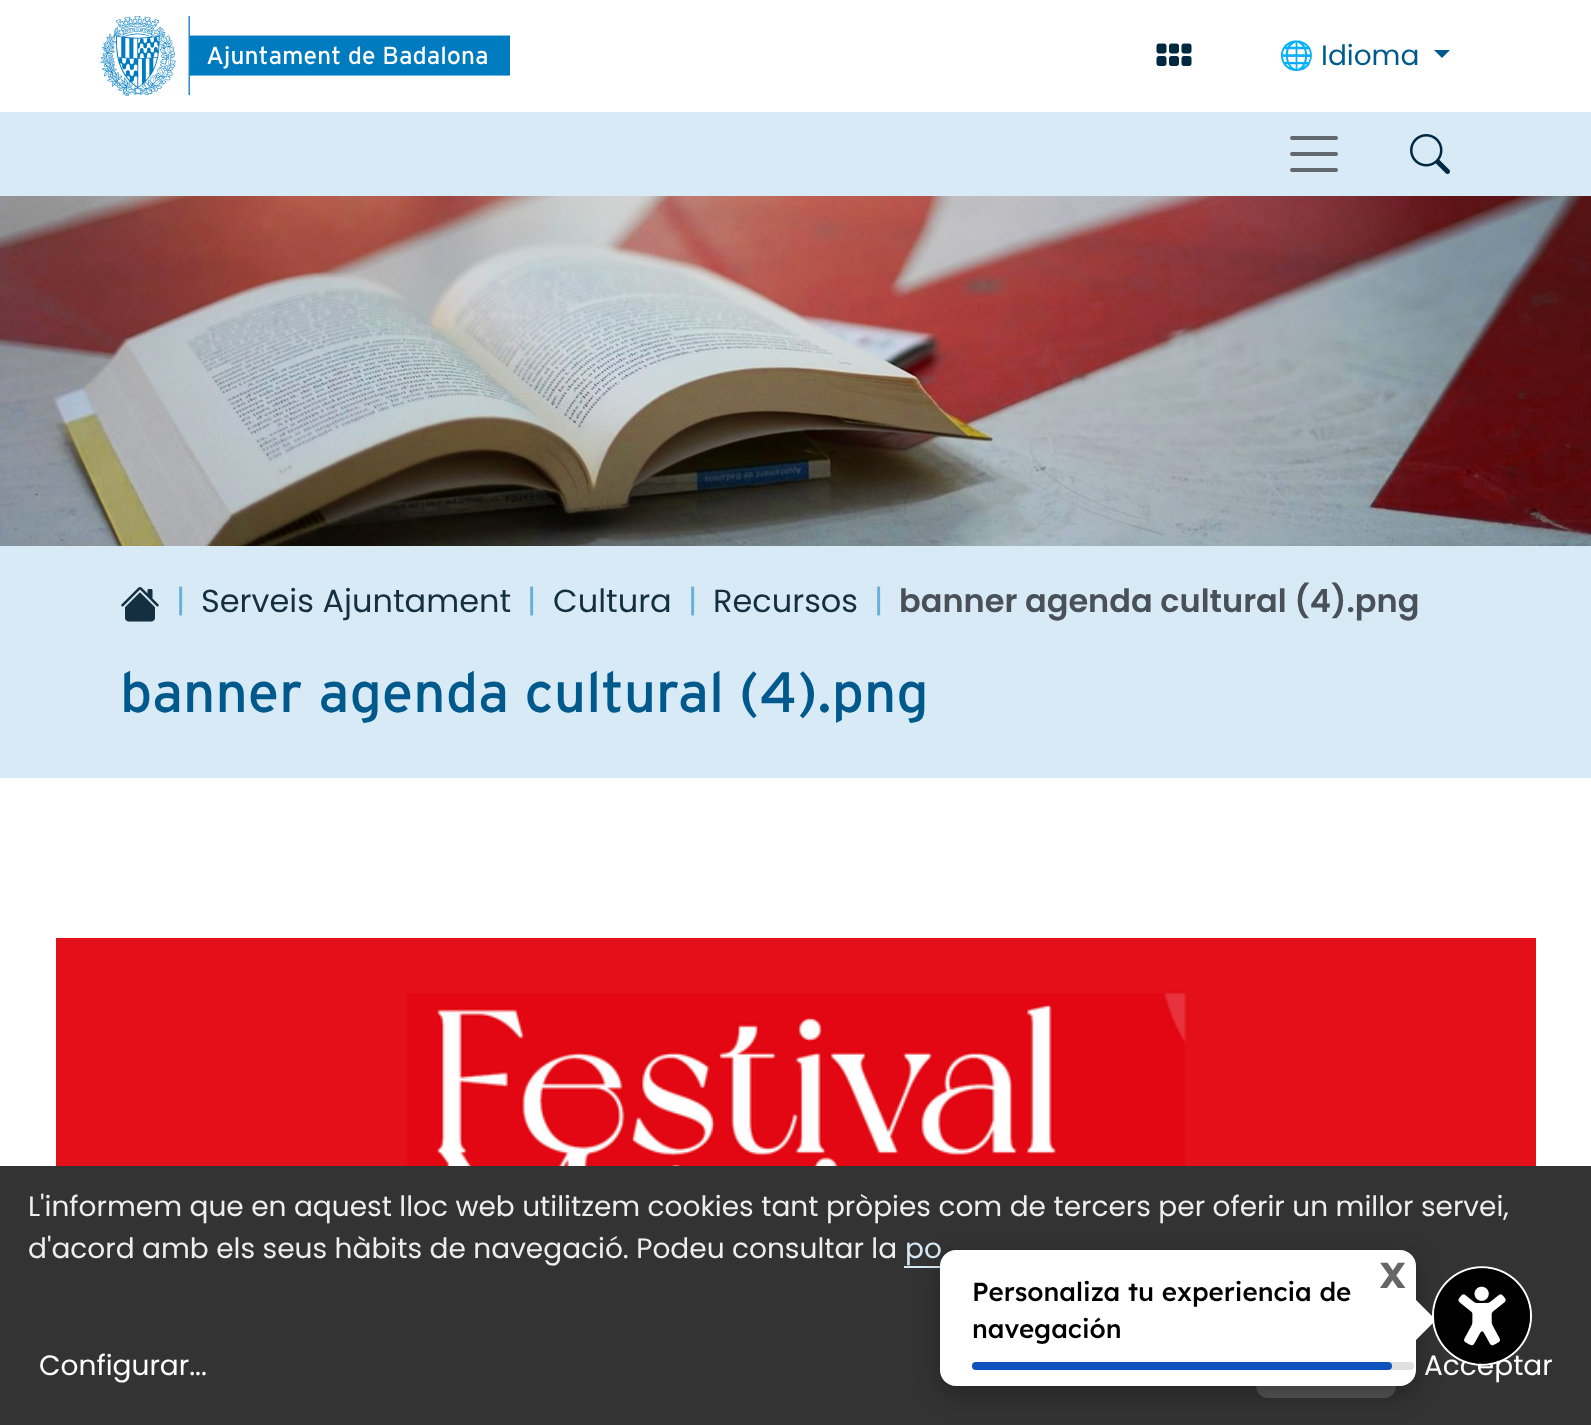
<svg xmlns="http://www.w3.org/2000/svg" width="1591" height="1425">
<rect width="100%" height="100%" fill="#fff"/>
<image x="100" y="16" width="410" height="80" href="media/1.png"/>
<image x="1156" y="43" width="36" height="23" href="media/2.png"/>
<text x="1279" y="65" style="font-family:Noto Color Emoji;font-size:28px;fill:#00598c">🌐</text>
<text x="1321" y="65" style="font-family:Poppins;font-size:28px;fill:#00598c">Idioma</text>
<path d="M1434 50h16l-8 8z" fill="#00598c"/>
<rect y="112" width="1591" height="84" fill="#d8eaf5"/>
<path d="M1292 138h44m-44 16h44m-44 16h44" fill="none" stroke="#61696e" stroke-width="4" stroke-linecap="round"/>
<image x="1410" y="134" width="40" height="40" href="media/3.png"/>
<image x="0" y="196" width="1591" height="350" href="media/4.png"/>
<rect y="546" width="1591" height="232" fill="#d8eaf5"/>
<image x="121" y="587" width="38" height="35" href="media/5.png"/>
<text x="176" y="612" style="font-family:Poppins;font-size:32px;fill:#66b0d9">|</text>
<text x="201" y="612" style="font-family:Poppins;font-size:32px;fill:#132f40">Serveis Ajuntament</text>
<text x="527" y="612" style="font-family:Poppins;font-size:32px;fill:#66b0d9">|</text>
<text x="553" y="612" style="font-family:Poppins;font-size:32px;fill:#132f40">Cultura</text>
<text x="688" y="612" style="font-family:Poppins;font-size:32px;fill:#66b0d9">|</text>
<text x="713" y="612" style="font-family:Poppins;font-size:32px;fill:#132f40">Recursos</text>
<text x="874" y="612" style="font-family:Poppins;font-size:32px;fill:#66b0d9">|</text>
<text x="899" y="612" style="font-family:Poppins;font-size:32px;font-weight:600;fill:#495057">banner agenda cultural (4).png</text>
<text x="120" y="712" style="font-family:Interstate;font-size:56.75px;fill:#00598c">banner agenda cultural (4).png</text>
<image x="56" y="938" width="1480" height="228" href="media/6.png"/>
<rect y="1166" width="1591" height="259" fill="#333"/>
<text x="28" y="1216" style="font-family:Poppins;font-size:28px;fill:#eee">L'informem que en aquest lloc web utilitzem cookies tant pròpies com de tercers per oferir un millor servei,</text>
<text x="28" y="1258" style="font-family:Poppins;font-size:28px;fill:#eee">d'acord amb els seus hàbits de navegació. Podeu consultar la</text>
<text x="905" y="1258" style="font-family:Poppins;font-size:28px;fill:#d8eaf5">po</text>
<rect x="904" y="1266" width="36" height="2" fill="#d8eaf5"/>
<text x="39" y="1375" style="font-family:Poppins;font-size:28px;fill:#fff">Configurar...</text>
<rect x="1256" y="1334" width="140" height="64" rx="12" fill="#555"/>
<text x="1424" y="1375" style="font-family:Poppins;font-size:28px;fill:#fff">Acceptar</text>
<rect x="940" y="1258" width="476" height="136" rx="16" fill="#0000004d" filter="blur(12px)"/>
<rect x="940" y="1250" width="476" height="136" rx="16" fill="#fff"/>
<text x="1380" y="1288" style="font-family:Lexend;font-size:36px;font-weight:bold;fill:#666">X</text>
<text x="972" y="1301" style="font-family:Lexend;font-size:26px;font-weight:500;fill:#000">Personaliza tu experiencia de</text>
<text x="972" y="1338" style="font-family:Lexend;font-size:26px;font-weight:500;fill:#000">navegación</text>
<path d="M1416 1340v-40l20 20z" fill="#fff"/>
<rect x="972" y="1362" width="442" height="8" rx="4" fill="#e0e0e0"/>
<rect x="972" y="1362" width="420" height="8" rx="4" fill="#0f52bd"/>
<image x="1432" y="1266" width="100" height="100" href="media/7.png"/>
</svg>
